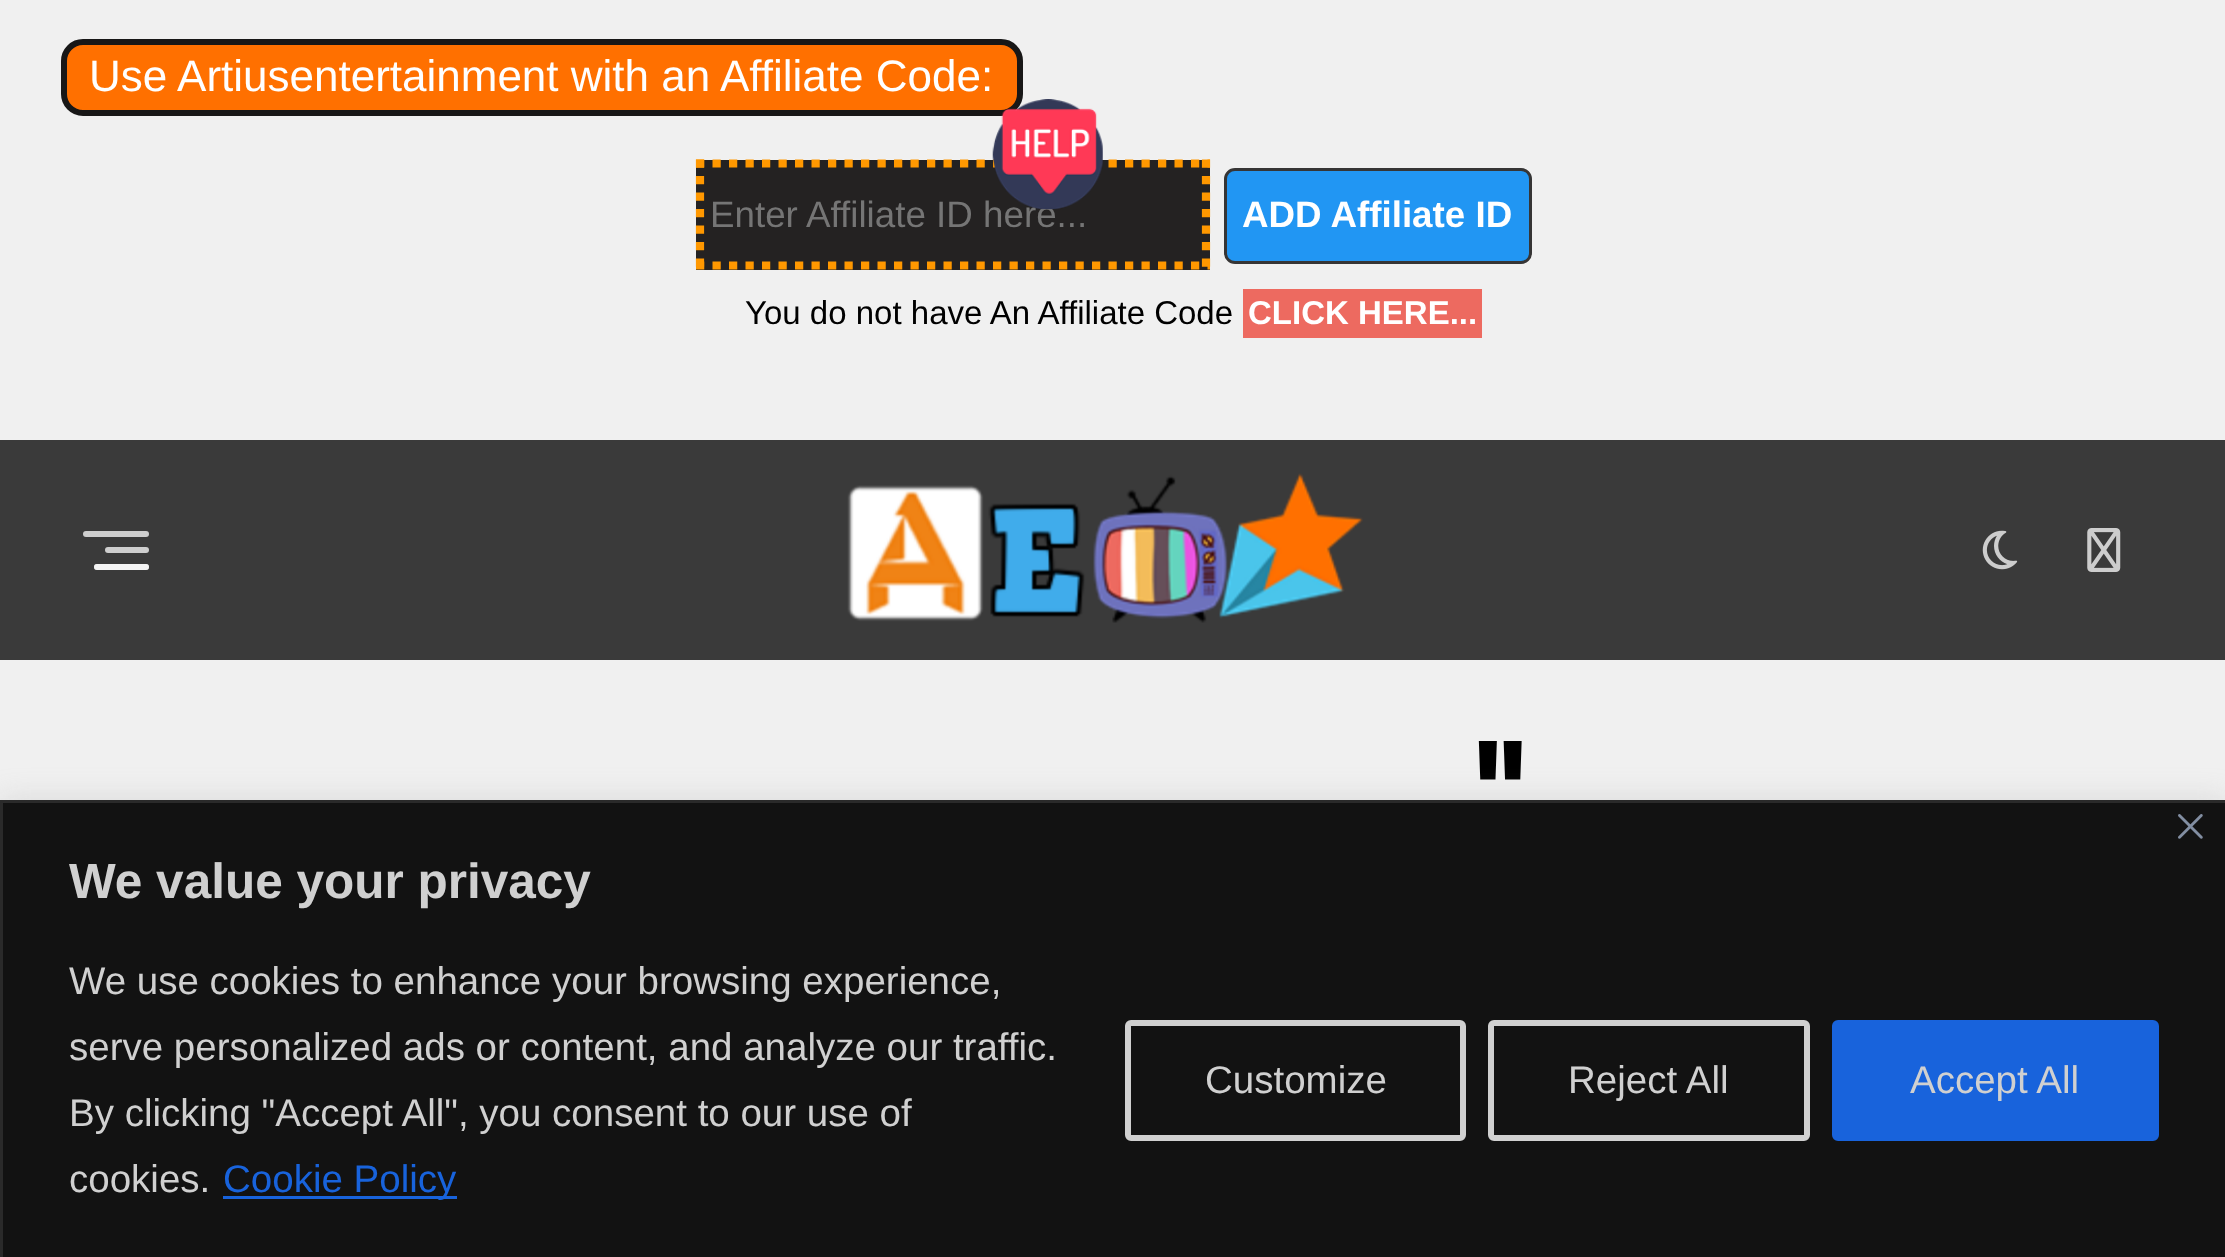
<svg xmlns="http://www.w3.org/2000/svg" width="2225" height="1257">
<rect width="100%" height="100%" fill="#f0f0f0"/>
<rect x="64" y="42" width="956" height="71" rx="19" fill="#ff7000" stroke="#181717" stroke-width="6"/>
<text x="89" y="91" style="font-family:Liberation Sans;font-size:44px;fill:#fff">Use Artiusentertainment with an Affiliate Code:</text>
<rect x="696" y="160" width="514" height="110" fill="#242222"/>
<path d="M696 163.5h514" fill="none" stroke="#ff9800" stroke-width="8.2" stroke-dasharray="8.25 8.25"/>
<text x="710" y="227" style="font-family:Liberation Sans;font-size:36.75px;fill:#757575">Enter Affiliate ID here...</text>
<image x="992" y="99" width="111" height="111" href="media/1.png"/>
<path d="M1206 159.5v110" fill="none" stroke="#ff9800" stroke-width="8.2" stroke-dasharray="8.25 8.25"/>
<path d="M696 265.5h514" fill="none" stroke="#ff9800" stroke-width="8.2" stroke-dasharray="8.25 8.25"/>
<path d="M700 159.5v110" fill="none" stroke="#ff9800" stroke-width="8.2" stroke-dasharray="8.25 8.25"/>
<rect x="1225.5" y="169.5" width="305" height="93" rx="9.5" fill="#2196f3" stroke="#363535" stroke-width="3"/>
<text x="1242" y="227" style="font-family:Liberation Sans;font-size:36.75px;font-weight:bold;fill:#fff">ADD Affiliate ID</text>
<text x="745" y="324" style="font-family:Liberation Sans;font-size:33px;fill:#000">You do not have An Affiliate Code</text>
<rect x="1243" y="289" width="239" height="49" fill="#ed6a60"/>
<text x="1248" y="324" style="font-family:Liberation Sans;font-size:33px;font-weight:bold;fill:#fff">CLICK HERE...</text>
<rect y="440" width="2225" height="220" fill="#3a3a3a"/>
<rect x="83" y="531" width="66" height="6" rx="3" fill="#cecece"/>
<rect x="105" y="547" width="44" height="6" rx="3" fill="#cecece"/>
<rect x="94" y="564" width="55" height="6" rx="3" fill="#cecece"/>
<rect x="94" y="564" width="55" height="6" rx="3" fill="#ffffffbf"/>
<image x="847" y="473" width="516" height="150" href="media/2.png"/>
<image x="1982" y="530" width="36" height="40" href="media/3.png"/>
<image x="2087" y="528" width="34" height="44" href="media/4.png"/>
<text x="1475" y="853" style="font-family:ABeeZee;font-size:154px;font-weight:bold;letter-spacing:-3px;fill:#000">"</text>
<rect y="798" width="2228" height="459" fill="#acabab4d" filter="blur(14px)"/>
<rect x="1.5" y="801.5" width="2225" height="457" fill="#121212" stroke="#2a2a2a" stroke-width="3"/>
<image x="2178" y="814" width="25" height="25" href="media/5.png"/>
<text x="69" y="898" style="font-family:Liberation Sans;font-size:49.5px;font-weight:bold;fill:#d0d0d0">We value your privacy</text>
<text x="69" y="994" style="font-family:Liberation Sans;font-size:38.5px;fill:#d0d0d0">We use cookies to enhance your browsing experience,</text>
<text x="69" y="1060" style="font-family:Liberation Sans;font-size:38.5px;fill:#d0d0d0">serve personalized ads or content, and analyze our traffic.</text>
<text x="69" y="1126" style="font-family:Liberation Sans;font-size:38.5px;fill:#d0d0d0">By clicking "Accept All", you consent to our use of</text>
<text x="69" y="1192" style="font-family:Liberation Sans;font-size:38.5px;fill:#d0d0d0">cookies.</text>
<rect x="223" y="1196" width="234" height="3" fill="#1863dc"/>
<text x="223" y="1192" style="font-family:Liberation Sans;font-size:38.5px;fill:#1863dc">Cookie Policy</text>
<rect x="1128" y="1023" width="335" height="115" rx="3" fill="none" stroke="#d0d0d0" stroke-width="6"/>
<text x="1205" y="1093" style="font-family:Liberation Sans;font-size:38.5px;fill:#d0d0d0">Customize</text>
<rect x="1491" y="1023" width="316" height="115" rx="3" fill="none" stroke="#d0d0d0" stroke-width="6"/>
<text x="1568" y="1093" style="font-family:Liberation Sans;font-size:38.5px;fill:#d0d0d0">Reject All</text>
<rect x="1835" y="1023" width="321" height="115" rx="3" fill="#1863dc" stroke="#1863dc" stroke-width="6"/>
<text x="1910" y="1093" style="font-family:Liberation Sans;font-size:38.5px;fill:#d0d0d0">Accept All</text>
</svg>
